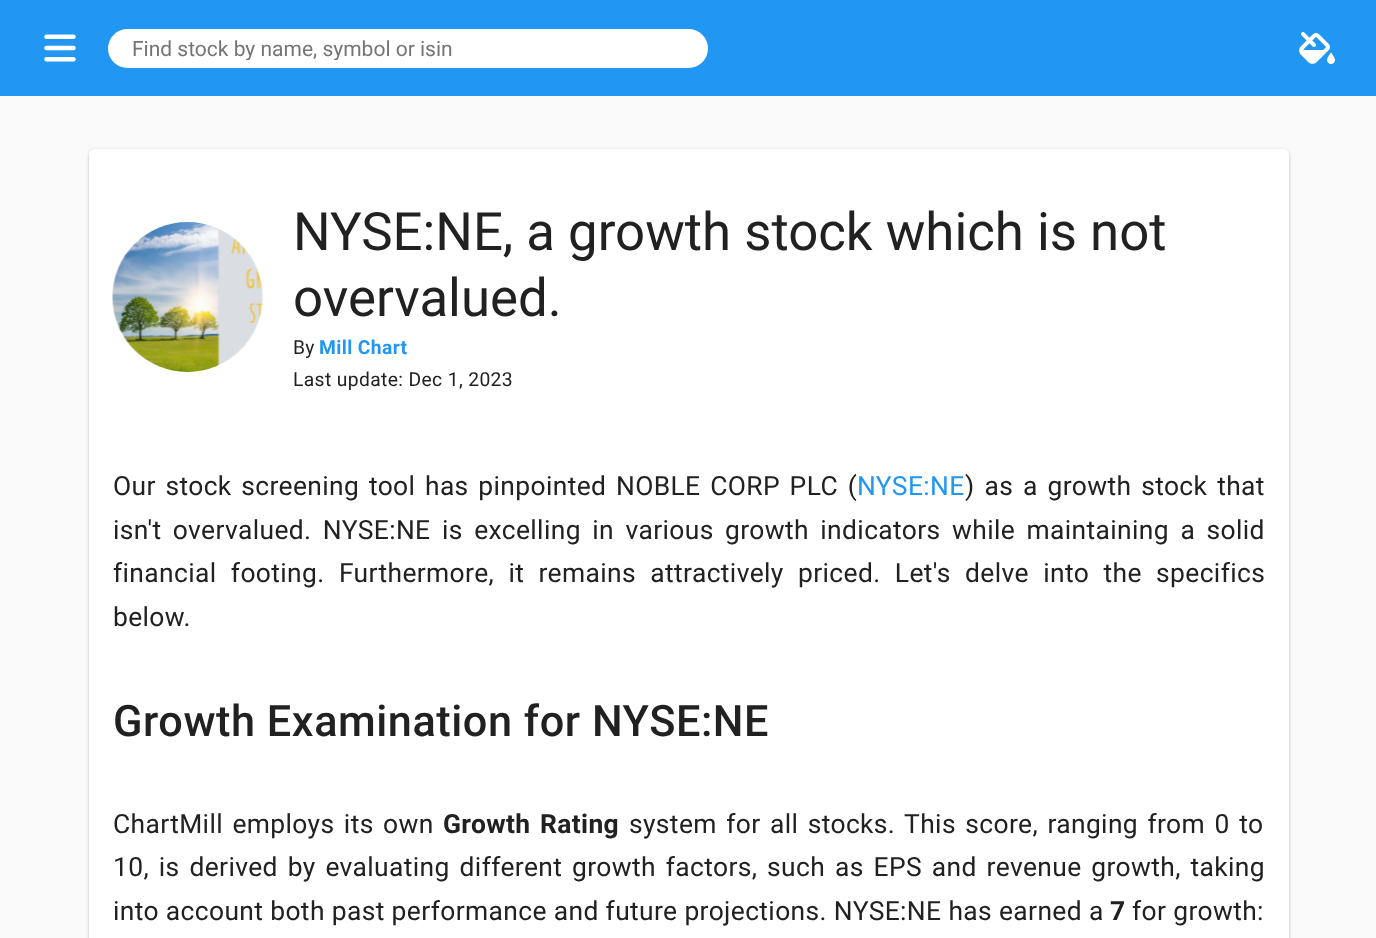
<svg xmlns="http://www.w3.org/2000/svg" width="1376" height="938">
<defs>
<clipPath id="clip1"><rect x="132" y="36" width="552" height="24"/></clipPath>
</defs>
<rect width="100%" height="100%" fill="#fafafa"/>
<rect width="1376" height="96" fill="#2196f3"/>
<image x="44" y="34" width="32" height="28" href="media/1.png"/>
<rect x="108" y="29" width="600" height="39" rx="19.5" fill="#fff"/>
<g clip-path="url(#clip1)">
<text x="132" y="56" style="font-family:Roboto;font-size:21px;fill:#757575">Find stock by name, symbol or isin</text>
</g>
<image x="1299" y="32" width="36" height="32" href="media/2.png"/>
<rect x="89" y="150" width="1200" height="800" rx="6" fill="#0000001f" filter="blur(2px)"/>
<rect x="89" y="150" width="1200" height="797" rx="6" fill="#00000024" filter="blur(1px)"/>
<path d="M95 149h1188c3.5 0 6 2.5 6 6v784h-1200v-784c0-3.5 2.5-6 6-6z" fill="#fff"/>
<image x="112" y="222" width="151" height="150" href="media/3.png"/>
<text x="293" y="250" style="font-family:Roboto;font-size:52.75px;fill:#212121">NYSE:NE, a growth stock which is not</text>
<text x="293" y="316" style="font-family:Roboto;font-size:52.75px;fill:#212121">overvalued.</text>
<text x="293" y="354" style="font-family:Roboto;font-size:19.25px;letter-spacing:0.38px;fill:#212121">By</text>
<text x="319" y="354" style="font-family:Roboto;font-size:19.25px;font-weight:bold;letter-spacing:0.38px;fill:#2196f3">Mill Chart</text>
<text x="293" y="386" style="font-family:Roboto;font-size:19.25px;letter-spacing:0.38px;fill:#212121">Last update: Dec 1, 2023</text>
<text x="113" y="495" word-spacing="2.75" style="font-family:Roboto;font-size:26.4px;letter-spacing:0.38px;fill:#212121">Our stock screening tool has pinpointed NOBLE CORP PLC (</text>
<text x="857" y="495" style="font-family:Roboto;font-size:26.4px;letter-spacing:0.38px;fill:#2196f3">NYSE:NE</text>
<text x="965" y="495" word-spacing="2.9" style="font-family:Roboto;font-size:26.4px;letter-spacing:0.38px;fill:#212121">) as a growth stock that</text>
<text x="113" y="539" word-spacing="4.5" style="font-family:Roboto;font-size:26.4px;letter-spacing:0.38px;fill:#212121">isn't overvalued. NYSE:NE is excelling in various growth indicators while maintaining a solid</text>
<text x="113" y="582" word-spacing="7.4" style="font-family:Roboto;font-size:26.4px;letter-spacing:0.38px;fill:#212121">financial footing. Furthermore, it remains attractively priced. Let's delve into the specifics</text>
<text x="113" y="626" style="font-family:Roboto;font-size:26.4px;letter-spacing:0.38px;fill:#212121">below.</text>
<text x="113" y="736" style="font-family:Roboto;font-size:43.25px;font-weight:500;letter-spacing:0.55px;fill:#212121">Growth Examination for NYSE:NE</text>
<text x="113" y="833" word-spacing="2.5" style="font-family:Roboto;font-size:26.4px;letter-spacing:0.38px;fill:#212121">ChartMill employs its own</text>
<text x="443" y="833" word-spacing="2.5" style="font-family:Roboto;font-size:26.4px;font-weight:bold;letter-spacing:0.38px;fill:#212121">Growth Rating</text>
<text x="629" y="833" word-spacing="2.5" style="font-family:Roboto;font-size:26.4px;letter-spacing:0.38px;fill:#212121">system for all stocks. This score, ranging from 0 to</text>
<text x="113" y="876" word-spacing="2.9" style="font-family:Roboto;font-size:26.4px;letter-spacing:0.38px;fill:#212121">10, is derived by evaluating different growth factors, such as EPS and revenue growth, taking</text>
<text x="113" y="920" style="font-family:Roboto;font-size:26.4px;letter-spacing:0.38px;fill:#212121">into account both past performance and future projections. NYSE:NE has earned a</text>
<text x="1110" y="920" style="font-family:Roboto;font-size:26.4px;font-weight:bold;letter-spacing:0.38px;fill:#212121">7</text>
<text x="1132" y="920" style="font-family:Roboto;font-size:26.4px;letter-spacing:0.38px;fill:#212121">for growth:</text>
</svg>
